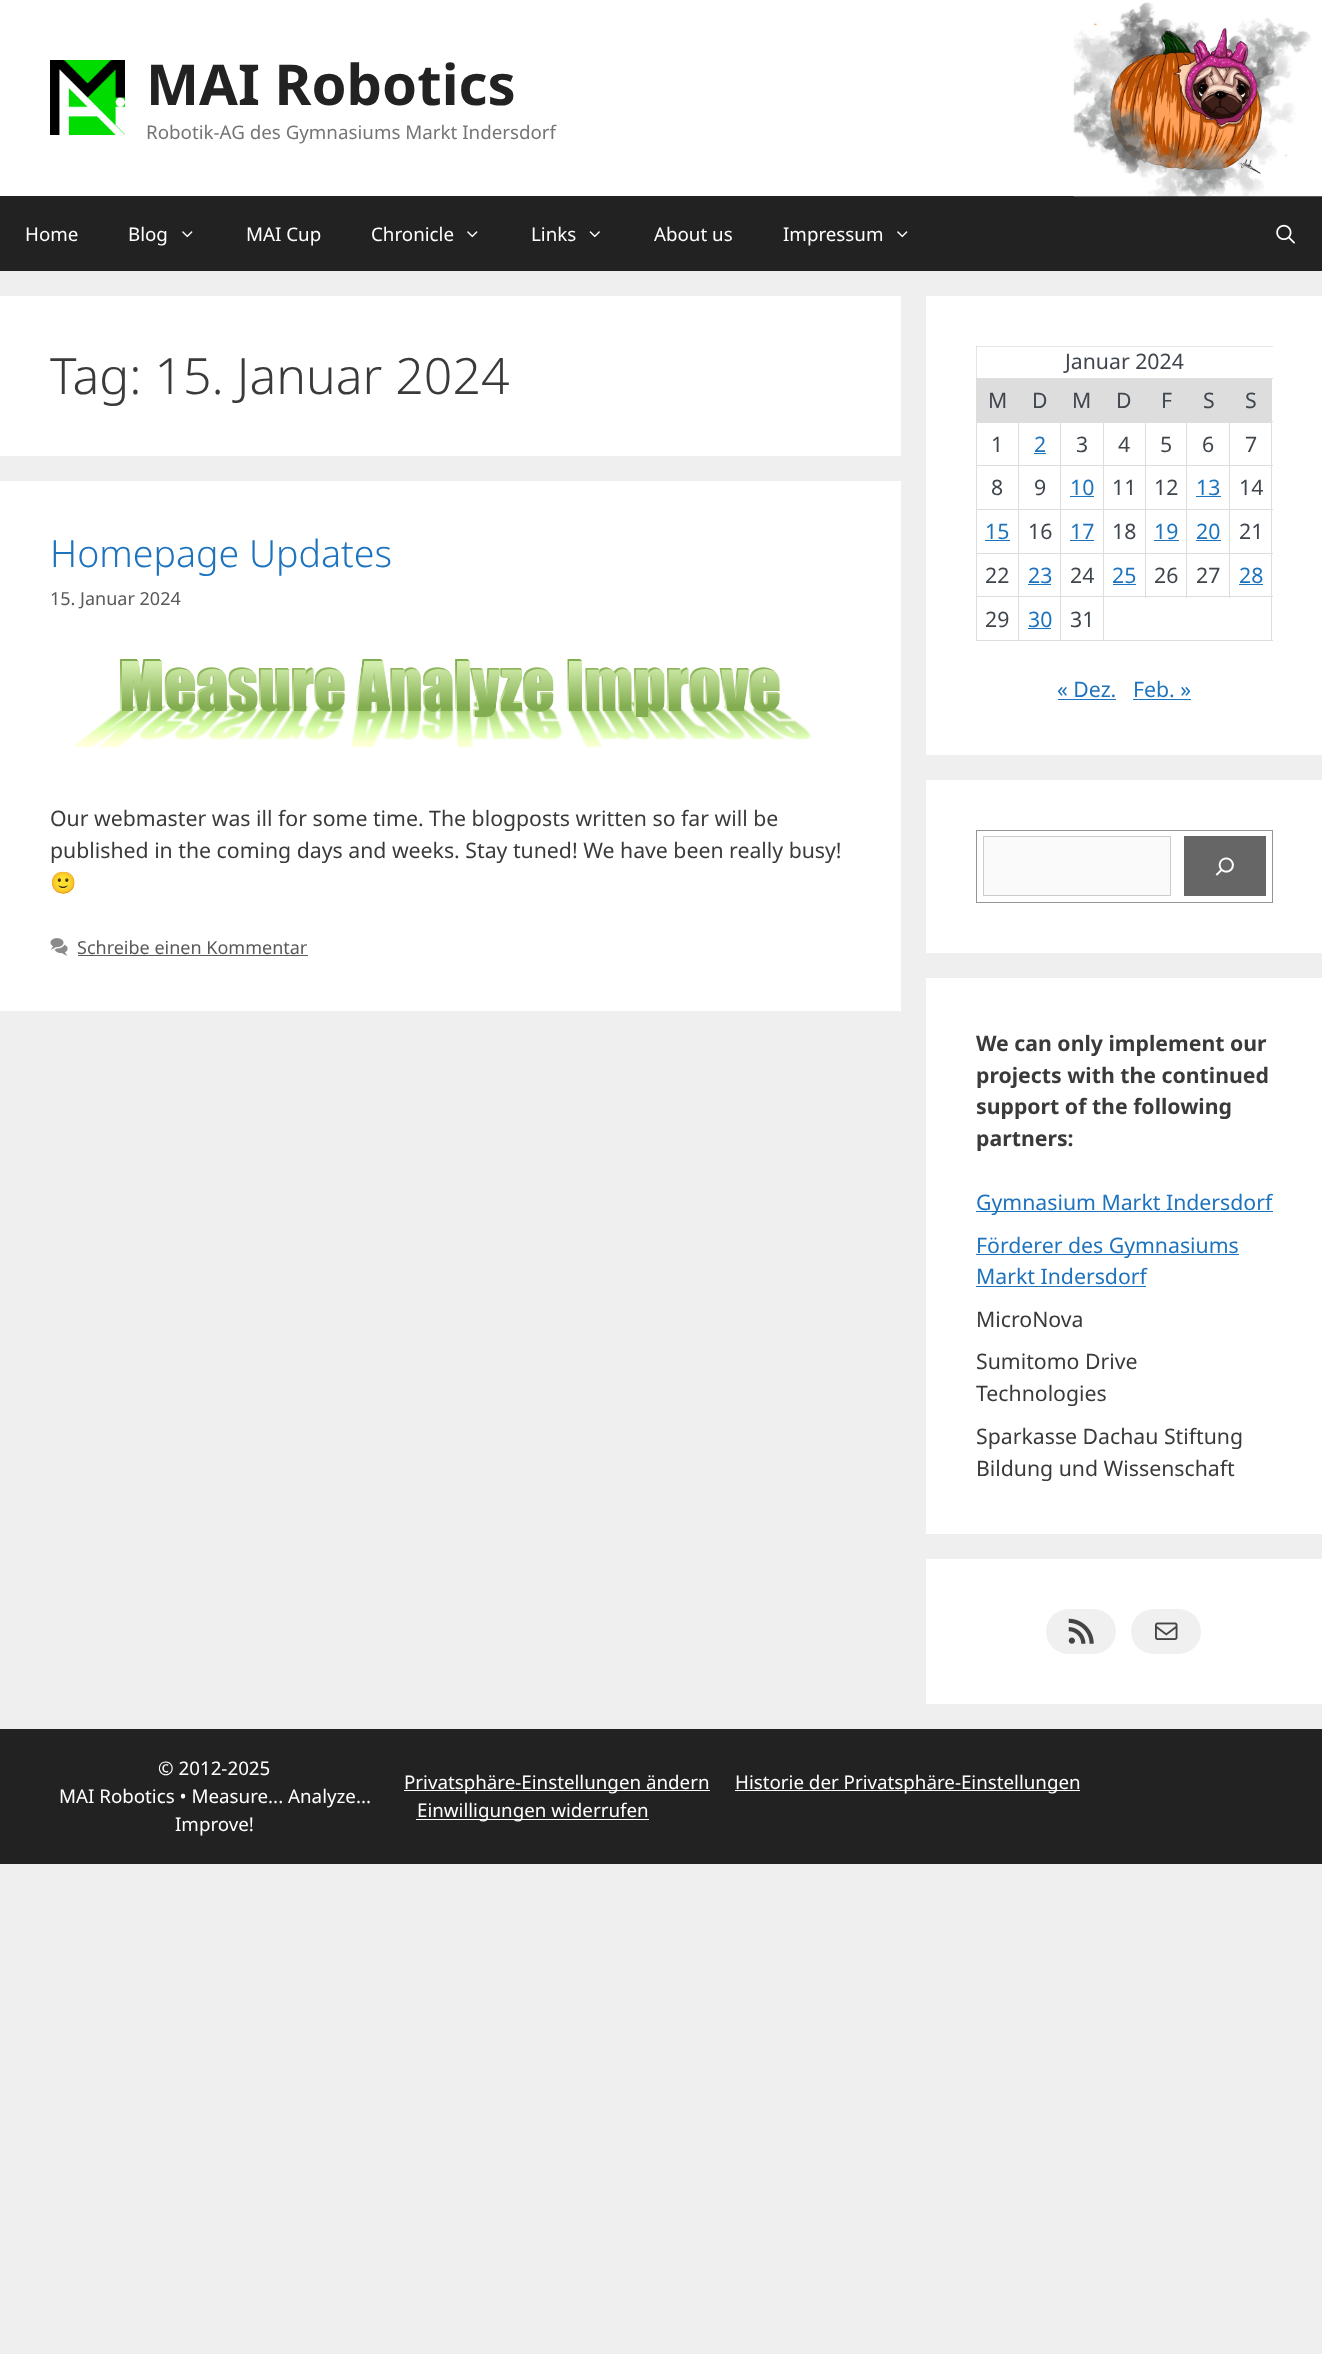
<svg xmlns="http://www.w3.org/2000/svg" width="1322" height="2354">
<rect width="100%" height="100%" fill="#efefef"/>
<rect width="1322" height="196" fill="#fff"/>
<rect y="196" width="1322" height="75" fill="#222"/>
<image x="1073" y="2" width="249" height="195" href="media/1.png"/>
<image x="50" y="60" width="75" height="75" href="media/2.png"/>
<text x="146" y="105" style="font-family:Noto Sans;font-size:56.25px;font-weight:bold;fill:#222">MAI Robotics</text>
<text x="146" y="139" style="font-family:Noto Sans;font-size:18.75px;fill:#757575">Robotik-AG des Gymnasiums Markt Indersdorf</text>
<text x="25" y="241" style="font-family:Noto Sans;font-size:18.75px;fill:#fff">Home</text>
<text x="128" y="241" style="font-family:Noto Sans;font-size:18.75px;fill:#fff">Blog</text>
<image x="182" y="231" width="11" height="7" href="media/3.png"/>
<text x="246" y="241" style="font-family:Noto Sans;font-size:18.75px;fill:#fff">MAI Cup</text>
<text x="371" y="241" style="font-family:Noto Sans;font-size:18.75px;fill:#fff">Chronicle</text>
<image x="467" y="231" width="11" height="7" href="media/3.png"/>
<text x="531" y="241" style="font-family:Noto Sans;font-size:18.75px;fill:#fff">Links</text>
<image x="589" y="231" width="11" height="7" href="media/4.png"/>
<text x="654" y="241" style="font-family:Noto Sans;font-size:18.75px;fill:#fff">About us</text>
<text x="783" y="241" style="font-family:Noto Sans;font-size:18.75px;fill:#fff">Impressum</text>
<image x="897" y="231" width="11" height="7" href="media/3.png"/>
<image x="1276" y="224" width="19" height="20" href="media/5.png"/>
<rect y="296" width="901" height="160" fill="#fff"/>
<text x="50" y="394" style="font-family:Noto Sans;font-size:50px;font-weight:300;fill:#3a3a3a">Tag: 15. Januar 2024</text>
<rect y="481" width="901" height="530" fill="#fff"/>
<text x="50" y="567" style="font-family:Noto Sans;font-size:37.5px;font-weight:300;fill:#1e73be">Homepage Updates</text>
<text x="50" y="605" style="font-family:Noto Sans;font-size:18px;fill:#595959">15. Januar 2024</text>
<image x="73" y="659" width="738" height="89" href="media/6.png"/>
<text x="50" y="826" style="font-family:Noto Sans;font-size:21.25px;fill:#3a3a3a">Our webmaster was ill for some time. The blogposts written so far will be</text>
<text x="50" y="858" style="font-family:Noto Sans;font-size:21.25px;fill:#3a3a3a">published in the coming days and weeks. Stay tuned! We have been really busy!</text>
<text x="50" y="890" style="font-family:Noto Color Emoji;font-size:21.25px;fill:#3a3a3a">🙂</text>
<image x="50" y="938" width="18" height="18" href="media/7.png"/>
<text x="77" y="954" style="font-family:Noto Sans;font-size:18px;fill:#595959">Schreibe einen Kommentar</text>
<rect x="78" y="955" width="230" height="1" fill="#595959"/>
<rect x="926" y="296" width="396" height="459" fill="#fff"/>
<rect x="976" y="346" width="1" height="32" fill="#e6e6e6"/>
<rect x="976" y="346" width="297" height="1" fill="#e6e6e6"/>
<rect x="976" y="346" width="1" height="1" fill="#cfcfcf"/>
<text x="1065" y="369" style="font-family:Noto Sans;font-size:21.25px;fill:#40464d">Januar 2024</text>
<rect x="977" y="379" width="294" height="44" fill="#ddd"/>
<rect x="976" y="378" width="297" height="1" fill="#ddd"/>
<rect x="1229" y="465" width="44" height="1" fill="#ddd"/>
<rect x="1229" y="509" width="44" height="1" fill="#ddd"/>
<rect x="1229" y="553" width="44" height="1" fill="#ddd"/>
<rect x="1103" y="596" width="170" height="1" fill="#ddd"/>
<rect x="1229" y="553" width="1" height="45" fill="#ddd"/>
<rect x="1186" y="553" width="44" height="1" fill="#ddd"/>
<rect x="1229" y="509" width="1" height="45" fill="#ddd"/>
<rect x="1186" y="509" width="44" height="1" fill="#ddd"/>
<rect x="1229" y="465" width="1" height="45" fill="#ddd"/>
<rect x="1186" y="465" width="44" height="1" fill="#ddd"/>
<rect x="1186" y="553" width="1" height="45" fill="#ddd"/>
<rect x="1145" y="553" width="43" height="1" fill="#ddd"/>
<rect x="1186" y="509" width="1" height="45" fill="#ddd"/>
<rect x="1145" y="509" width="43" height="1" fill="#ddd"/>
<rect x="1186" y="465" width="1" height="45" fill="#ddd"/>
<rect x="1145" y="465" width="43" height="1" fill="#ddd"/>
<rect x="1145" y="553" width="1" height="45" fill="#ddd"/>
<rect x="1103" y="553" width="43" height="1" fill="#ddd"/>
<rect x="1145" y="509" width="1" height="45" fill="#ddd"/>
<rect x="1103" y="509" width="43" height="1" fill="#ddd"/>
<rect x="1145" y="465" width="1" height="45" fill="#ddd"/>
<rect x="1103" y="465" width="43" height="1" fill="#ddd"/>
<rect x="1271" y="596" width="1" height="45" fill="#ddd"/>
<rect x="1103" y="640" width="170" height="1" fill="#ddd"/>
<rect x="1103" y="596" width="1" height="45" fill="#ddd"/>
<rect x="1060" y="596" width="44" height="1" fill="#ddd"/>
<rect x="1103" y="553" width="1" height="45" fill="#ddd"/>
<rect x="1060" y="553" width="44" height="1" fill="#ddd"/>
<rect x="1103" y="509" width="1" height="45" fill="#ddd"/>
<rect x="1060" y="509" width="44" height="1" fill="#ddd"/>
<rect x="1103" y="465" width="1" height="45" fill="#ddd"/>
<rect x="1060" y="465" width="44" height="1" fill="#ddd"/>
<rect x="1060" y="640" width="44" height="1" fill="#ddd"/>
<rect x="1060" y="596" width="1" height="45" fill="#ddd"/>
<rect x="1018" y="596" width="43" height="1" fill="#ddd"/>
<rect x="1060" y="553" width="1" height="45" fill="#ddd"/>
<rect x="1018" y="553" width="43" height="1" fill="#ddd"/>
<rect x="1060" y="509" width="1" height="45" fill="#ddd"/>
<rect x="1018" y="509" width="43" height="1" fill="#ddd"/>
<rect x="1060" y="465" width="1" height="45" fill="#ddd"/>
<rect x="1018" y="465" width="43" height="1" fill="#ddd"/>
<rect x="1018" y="640" width="43" height="1" fill="#ddd"/>
<rect x="1018" y="596" width="1" height="45" fill="#ddd"/>
<rect x="976" y="596" width="43" height="1" fill="#ddd"/>
<rect x="1018" y="553" width="1" height="45" fill="#ddd"/>
<rect x="976" y="553" width="43" height="1" fill="#ddd"/>
<rect x="1018" y="509" width="1" height="45" fill="#ddd"/>
<rect x="976" y="509" width="43" height="1" fill="#ddd"/>
<rect x="1018" y="465" width="1" height="45" fill="#ddd"/>
<rect x="976" y="465" width="43" height="1" fill="#ddd"/>
<rect x="976" y="640" width="43" height="1" fill="#ddd"/>
<rect x="976" y="596" width="1" height="45" fill="#ddd"/>
<rect x="976" y="553" width="1" height="45" fill="#ddd"/>
<rect x="976" y="509" width="1" height="45" fill="#ddd"/>
<rect x="976" y="465" width="1" height="45" fill="#ddd"/>
<rect x="976" y="421" width="1" height="45" fill="#ddd"/>
<rect x="976" y="378" width="1" height="45" fill="#ddd"/>
<text x="988" y="408" style="font-family:Noto Sans;font-size:21.25px;fill:#40464d">M</text>
<text x="1032" y="408" style="font-family:Noto Sans;font-size:21.25px;fill:#40464d">D</text>
<text x="1072" y="408" style="font-family:Noto Sans;font-size:21.25px;fill:#40464d">M</text>
<text x="1116" y="408" style="font-family:Noto Sans;font-size:21.25px;fill:#40464d">D</text>
<text x="1161" y="408" style="font-family:Noto Sans;font-size:21.25px;fill:#40464d">F</text>
<text x="1203" y="408" style="font-family:Noto Sans;font-size:21.25px;fill:#40464d">S</text>
<rect x="1271" y="421" width="2" height="1" fill="#ddd"/>
<rect x="1271" y="553" width="1" height="45" fill="#ddd"/>
<rect x="1271" y="509" width="1" height="45" fill="#ddd"/>
<rect x="1271" y="465" width="1" height="45" fill="#ddd"/>
<rect x="1271" y="421" width="1" height="45" fill="#ddd"/>
<rect x="1271" y="378" width="1" height="45" fill="#ddd"/>
<text x="1245" y="408" style="font-family:Noto Sans;font-size:21.25px;fill:#40464d">S</text>
<text x="991" y="452" style="font-family:Noto Sans;font-size:21.25px;fill:#40464d">1</text>
<rect x="1018" y="421" width="1" height="45" fill="#ddd"/>
<text x="1034" y="452" style="font-family:Noto Sans;font-size:21.25px;fill:#1e73be">2</text>
<rect x="1034" y="453" width="12" height="1" fill="#1e73be"/>
<rect x="1060" y="421" width="1" height="45" fill="#ddd"/>
<text x="1076" y="452" style="font-family:Noto Sans;font-size:21.25px;fill:#40464d">3</text>
<rect x="1103" y="421" width="1" height="45" fill="#ddd"/>
<text x="1118" y="452" style="font-family:Noto Sans;font-size:21.25px;fill:#40464d">4</text>
<rect x="1145" y="421" width="1" height="45" fill="#ddd"/>
<text x="1160" y="452" style="font-family:Noto Sans;font-size:21.25px;fill:#40464d">5</text>
<rect x="1186" y="421" width="1" height="45" fill="#ddd"/>
<text x="1202" y="452" style="font-family:Noto Sans;font-size:21.25px;fill:#40464d">6</text>
<rect x="1229" y="421" width="1" height="45" fill="#ddd"/>
<text x="1245" y="452" style="font-family:Noto Sans;font-size:21.25px;fill:#40464d">7</text>
<text x="991" y="495" style="font-family:Noto Sans;font-size:21.25px;fill:#40464d">8</text>
<text x="1034" y="495" style="font-family:Noto Sans;font-size:21.25px;fill:#40464d">9</text>
<text x="1070" y="495" style="font-family:Noto Sans;font-size:21.25px;fill:#1e73be">10</text>
<rect x="1070" y="496" width="24" height="1" fill="#1e73be"/>
<text x="1112" y="495" style="font-family:Noto Sans;font-size:21.25px;fill:#40464d">11</text>
<text x="1154" y="495" style="font-family:Noto Sans;font-size:21.25px;fill:#40464d">12</text>
<text x="1196" y="495" style="font-family:Noto Sans;font-size:21.25px;fill:#1e73be">13</text>
<rect x="1196" y="496" width="25" height="1" fill="#1e73be"/>
<text x="1239" y="495" style="font-family:Noto Sans;font-size:21.25px;fill:#40464d">14</text>
<text x="985" y="539" style="font-family:Noto Sans;font-size:21.25px;fill:#1e73be">15</text>
<rect x="985" y="540" width="25" height="1" fill="#1e73be"/>
<text x="1028" y="539" style="font-family:Noto Sans;font-size:21.25px;fill:#40464d">16</text>
<text x="1070" y="539" style="font-family:Noto Sans;font-size:21.25px;fill:#1e73be">17</text>
<rect x="1070" y="540" width="24" height="1" fill="#1e73be"/>
<text x="1112" y="539" style="font-family:Noto Sans;font-size:21.25px;fill:#40464d">18</text>
<text x="1154" y="539" style="font-family:Noto Sans;font-size:21.25px;fill:#1e73be">19</text>
<rect x="1154" y="540" width="25" height="1" fill="#1e73be"/>
<text x="1196" y="539" style="font-family:Noto Sans;font-size:21.25px;fill:#1e73be">20</text>
<rect x="1196" y="540" width="25" height="1" fill="#1e73be"/>
<text x="1239" y="539" style="font-family:Noto Sans;font-size:21.25px;fill:#40464d">21</text>
<text x="985" y="583" style="font-family:Noto Sans;font-size:21.25px;fill:#40464d">22</text>
<text x="1028" y="583" style="font-family:Noto Sans;font-size:21.25px;fill:#1e73be">23</text>
<rect x="1028" y="584" width="23" height="1" fill="#1e73be"/>
<text x="1070" y="583" style="font-family:Noto Sans;font-size:21.25px;fill:#40464d">24</text>
<text x="1112" y="583" style="font-family:Noto Sans;font-size:21.25px;fill:#1e73be">25</text>
<rect x="1113" y="584" width="23" height="1" fill="#1e73be"/>
<text x="1154" y="583" style="font-family:Noto Sans;font-size:21.25px;fill:#40464d">26</text>
<text x="1196" y="583" style="font-family:Noto Sans;font-size:21.25px;fill:#40464d">27</text>
<text x="1239" y="583" style="font-family:Noto Sans;font-size:21.25px;fill:#1e73be">28</text>
<rect x="1239" y="584" width="24" height="1" fill="#1e73be"/>
<text x="985" y="627" style="font-family:Noto Sans;font-size:21.25px;fill:#40464d">29</text>
<text x="1028" y="627" style="font-family:Noto Sans;font-size:21.25px;fill:#1e73be">30</text>
<rect x="1028" y="628" width="23" height="1" fill="#1e73be"/>
<text x="1070" y="627" style="font-family:Noto Sans;font-size:21.25px;fill:#40464d">31</text>
<text x="1057" y="697" style="font-family:Noto Sans;font-size:21.25px;fill:#1e73be">« Dez.</text>
<rect x="1058" y="699" width="58" height="1" fill="#1e73be"/>
<text x="1133" y="697" style="font-family:Noto Sans;font-size:21.25px;fill:#1e73be">Feb. »</text>
<rect x="1133" y="699" width="58" height="1" fill="#1e73be"/>
<rect x="926" y="780" width="396" height="173" fill="#fff"/>
<rect x="976.5" y="830.5" width="296" height="72" fill="none" stroke="#949494"/>
<rect x="983.5" y="836.5" width="187" height="59" fill="#fafafa" stroke="#ccc"/>
<rect x="1184" y="836" width="82" height="60" fill="#666"/>
<image x="1215" y="857" width="19" height="19" href="media/8.png"/>
<rect x="926" y="978" width="396" height="556" fill="#fff"/>
<text x="976" y="1051" style="font-family:Noto Sans;font-size:21.25px;font-weight:bold;fill:#3a3a3a">We can only implement our</text>
<text x="976" y="1083" style="font-family:Noto Sans;font-size:21.25px;font-weight:bold;fill:#3a3a3a">projects with the continued</text>
<text x="976" y="1114" style="font-family:Noto Sans;font-size:21.25px;font-weight:bold;fill:#3a3a3a">support of the following</text>
<text x="976" y="1146" style="font-family:Noto Sans;font-size:21.25px;font-weight:bold;fill:#3a3a3a">partners:</text>
<rect x="976" y="1211" width="297" height="1" fill="#1e73be"/>
<text x="976" y="1210" style="font-family:Noto Sans;font-size:21.25px;fill:#1e73be">Gymnasium Markt Indersdorf</text>
<rect x="976" y="1254" width="263" height="1" fill="#1e73be"/>
<text x="976" y="1253" style="font-family:Noto Sans;font-size:21.25px;fill:#1e73be">Förderer des Gymnasiums</text>
<text x="976" y="1284" style="font-family:Noto Sans;font-size:21.25px;fill:#1e73be">Markt Indersdorf</text>
<rect x="976" y="1286" width="170" height="1" fill="#1e73be"/>
<text x="976" y="1327" style="font-family:Noto Sans;font-size:21.25px;fill:#3a3a3a">MicroNova</text>
<text x="976" y="1369" style="font-family:Noto Sans;font-size:21.25px;fill:#3a3a3a">Sumitomo Drive</text>
<text x="976" y="1401" style="font-family:Noto Sans;font-size:21.25px;fill:#3a3a3a">Technologies</text>
<text x="976" y="1444" style="font-family:Noto Sans;font-size:21.25px;fill:#3a3a3a">Sparkasse Dachau Stiftung</text>
<text x="976" y="1476" style="font-family:Noto Sans;font-size:21.25px;fill:#3a3a3a">Bildung und Wissenschaft</text>
<rect x="926" y="1559" width="396" height="145" fill="#fff"/>
<rect x="1046" y="1609" width="70" height="45" rx="22.5" fill="#f0f0f0"/>
<image x="1068" y="1618" width="26" height="26" href="media/9.png"/>
<rect x="1131" y="1609" width="70" height="45" rx="22.5" fill="#f0f0f0"/>
<image x="1155" y="1622" width="23" height="18" href="media/10.png"/>
<rect y="1729" width="1322" height="135" fill="#222"/>
<text x="158" y="1775" style="font-family:Noto Sans;font-size:18.75px;fill:#fff">© 2012-2025</text>
<text x="59" y="1803" style="font-family:Noto Sans;font-size:18.75px;fill:#fff">MAI Robotics • Measure... Analyze...</text>
<text x="175" y="1831" style="font-family:Noto Sans;font-size:18.75px;fill:#fff">Improve!</text>
<rect x="404" y="1790" width="306" height="1" fill="#fff"/>
<text x="404" y="1789" style="font-family:Noto Sans;font-size:18.75px;fill:#fff">Privatsphäre-Einstellungen ändern</text>
<rect x="735" y="1790" width="345" height="1" fill="#fff"/>
<text x="735" y="1789" style="font-family:Noto Sans;font-size:18.75px;fill:#fff">Historie der Privatsphäre-Einstellungen</text>
<rect x="416" y="1819" width="233" height="1" fill="#fff"/>
<text x="417" y="1817" style="font-family:Noto Sans;font-size:18.75px;fill:#fff">Einwilligungen widerrufen</text>
</svg>
